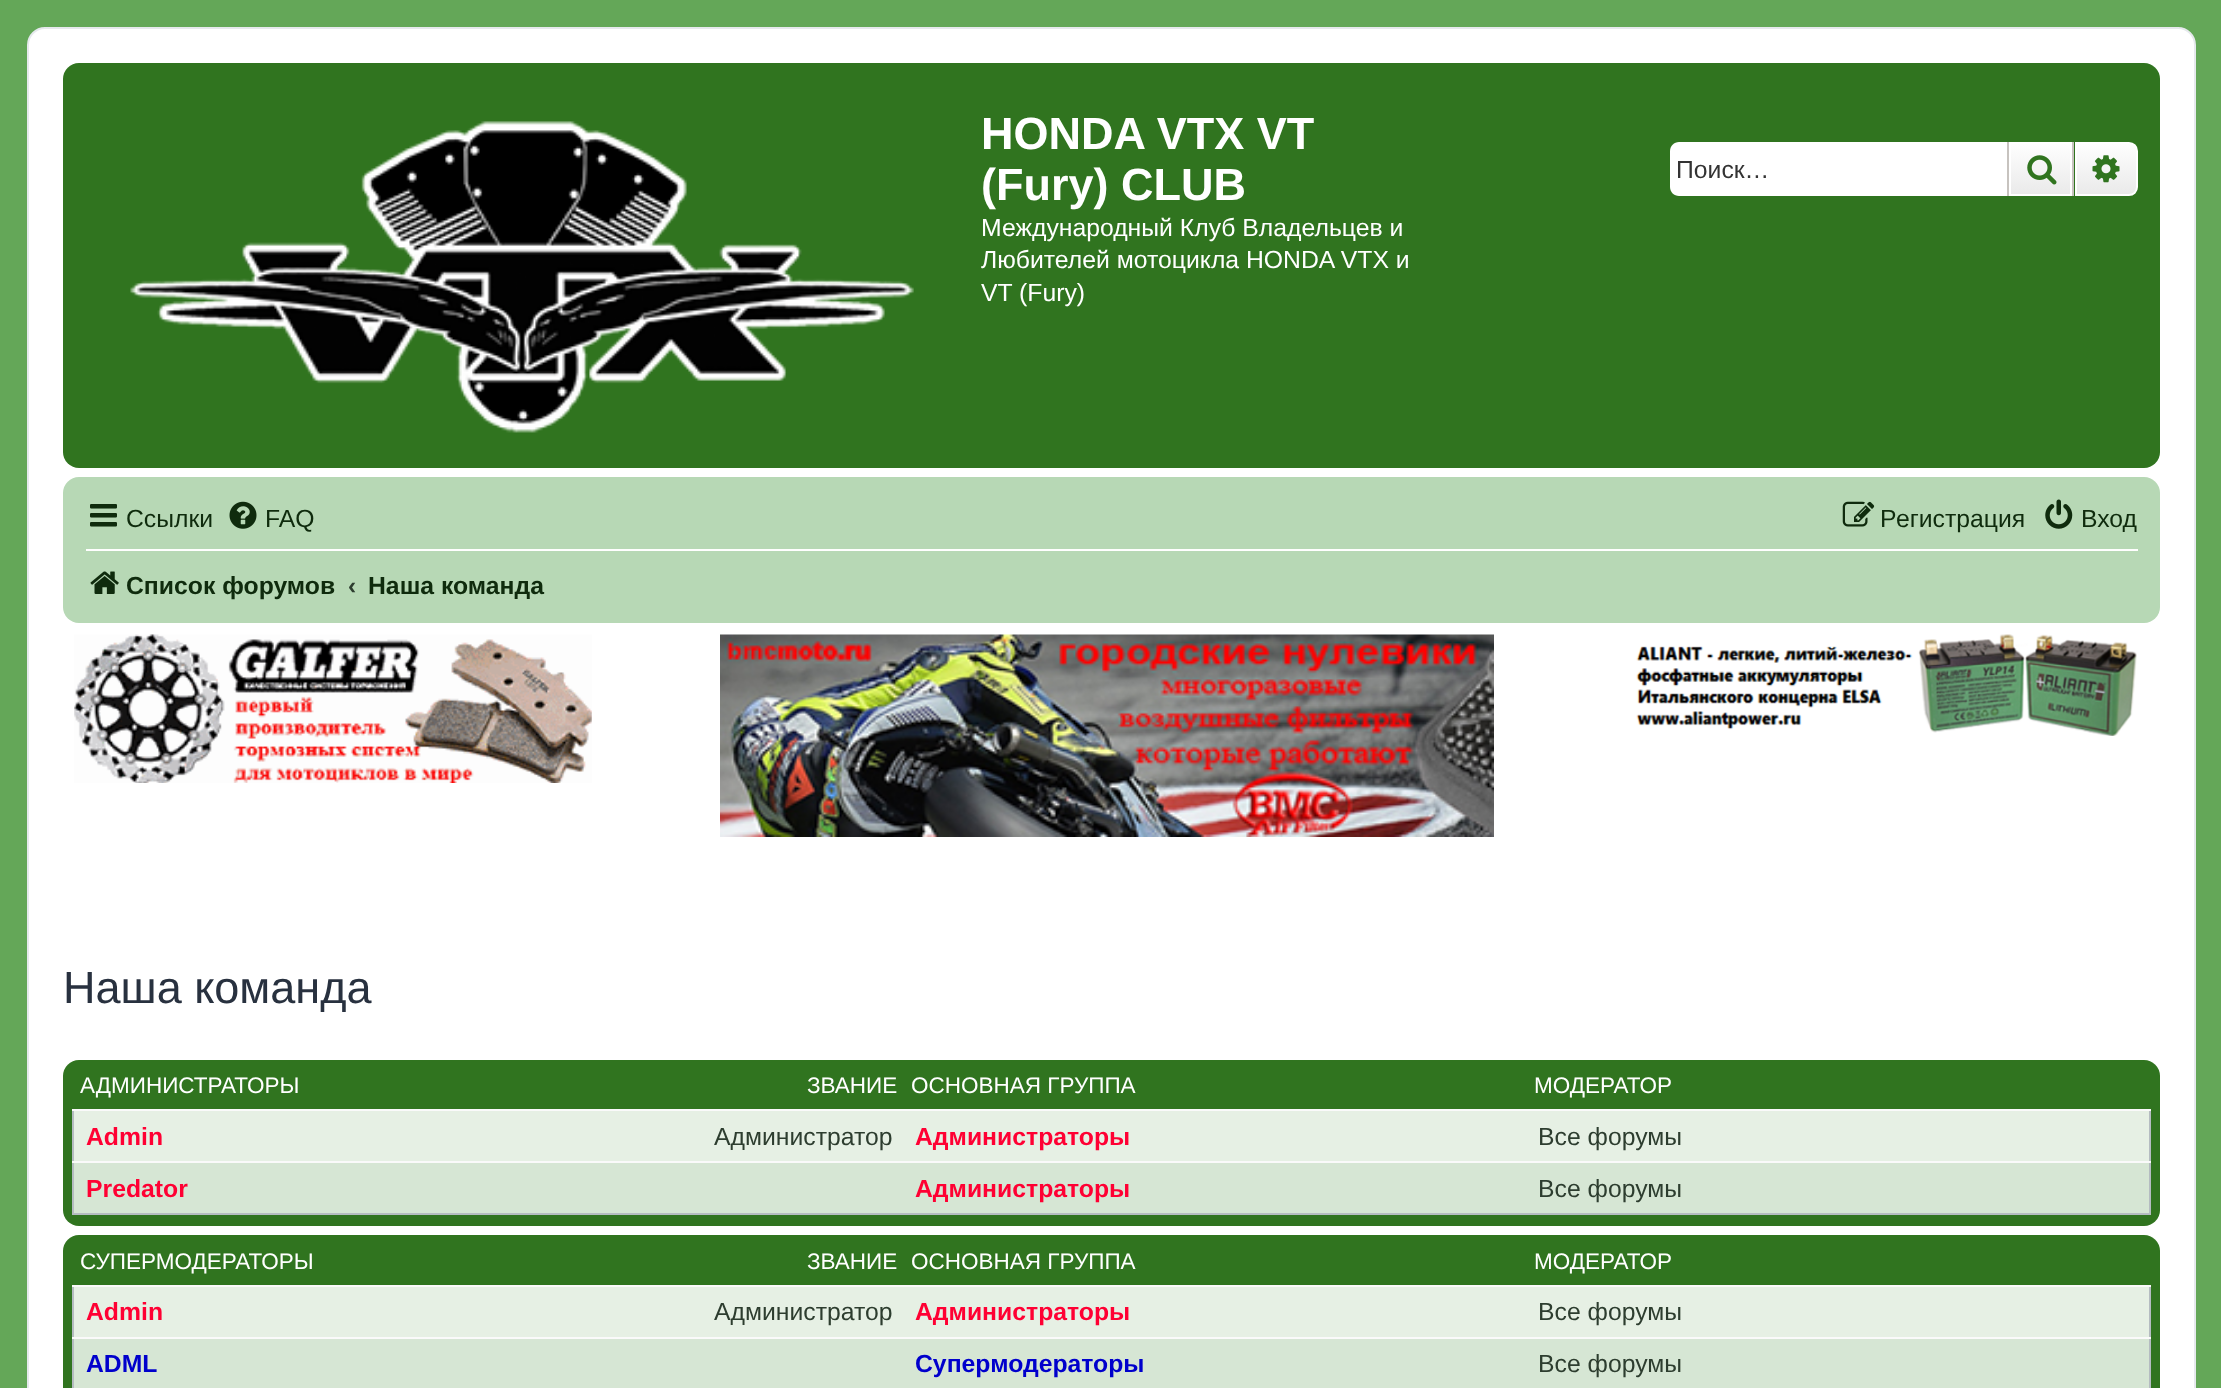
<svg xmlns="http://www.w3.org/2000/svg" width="2221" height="1388">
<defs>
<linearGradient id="g1" gradientUnits="userSpaceOnUse" x1="2041" y1="142" x2="2041" y2="196"><stop offset="0" stop-color="#fff"/><stop offset="1" stop-color="#e9e9e9"/></linearGradient>
<linearGradient id="g2" gradientUnits="userSpaceOnUse" x1="2106" y1="142" x2="2106" y2="196"><stop offset="0" stop-color="#fff"/><stop offset="1" stop-color="#e9e9e9"/></linearGradient>
</defs>
<rect width="100%" height="100%" fill="#64a758"/>
<rect x="28" y="28" width="2167" height="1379" rx="17" fill="#fff" stroke="#e6e9ed" stroke-width="2"/>
<rect x="63" y="63" width="2097" height="405" rx="16" fill="#30741f"/>
<image x="130" y="121" width="784" height="312" href="media/1.png"/>
<text x="981" y="149" style="font-family:Liberation Sans;font-size:45px;font-weight:bold;fill:#fff">HONDA VTX VT</text>
<text x="981" y="200" style="font-family:Liberation Sans;font-size:45px;font-weight:bold;fill:#fff">(Fury) CLUB</text>
<text x="981" y="236" style="font-family:Liberation Sans;font-size:24.75px;fill:#fff">Международный Клуб Владельцев и</text>
<text x="981" y="268" style="font-family:Liberation Sans;font-size:24.75px;fill:#fff">Любителей мотоцикла HONDA VTX и</text>
<text x="981" y="301" style="font-family:Liberation Sans;font-size:24.75px;fill:#fff">VT (Fury)</text>
<path d="M1679 142h328v54h-328c-5 0-9-4-9-9v-36c0-5 4-9 9-9z" fill="#fff"/>
<text x="1676" y="178" style="font-family:Liberation Sans;font-size:24.75px;fill:#333">Поиск…</text>
<rect x="2011" y="144" width="59" height="50" fill="url(#g1)"/>
<rect x="2010" y="143" width="61" height="52" fill="none" stroke="#fff" stroke-width="2"/>
<rect x="2072" y="142" width="2" height="54" fill="#c7c3bf"/>
<rect x="2007" y="142" width="2" height="54" fill="#c7c3bf"/>
<image x="2027" y="155" width="30" height="30" href="media/2.png"/>
<path d="M2076 143h53c4.5 0 8 3.5 8 8v36c0 4.5-3.5 8-8 8h-53z" fill="url(#g2)" stroke="#fff" stroke-width="2"/>
<image x="2092" y="155" width="28" height="28" href="media/3.png"/>
<rect x="63" y="477" width="2097" height="146" rx="16" fill="#b7d8b5"/>
<image x="90" y="504" width="27" height="23" href="media/4.png"/>
<text x="126" y="527" style="font-family:Liberation Sans;font-size:24.75px;fill:#0f2b0d">Ссылки</text>
<image x="229" y="501" width="28" height="28" href="media/5.png"/>
<text x="265" y="527" style="font-family:Liberation Sans;font-size:24.75px;fill:#0f2b0d">FAQ</text>
<image x="1842" y="501" width="33" height="26" href="media/6.png"/>
<text x="1880" y="527" style="font-family:Liberation Sans;font-size:24.75px;fill:#0f2b0d">Р</text>
<text x="1896" y="527" style="font-family:Liberation Sans;font-size:24.75px;fill:#0f2b0d">егистрация</text>
<image x="2045" y="499" width="28" height="30" href="media/7.png"/>
<text x="2081" y="527" style="font-family:Liberation Sans;font-size:24.75px;fill:#0f2b0d">Вход</text>
<rect x="86" y="549" width="2052" height="2" fill="#fff"/>
<image x="90" y="571" width="29" height="23" href="media/8.png"/>
<text x="126" y="594" style="font-family:Liberation Sans;font-size:24.75px;font-weight:bold;fill:#0f2b0d">Список форумов</text>
<text x="348" y="594" style="font-family:Liberation Sans;font-size:24.75px;font-weight:bold;fill:#2d3d2f">‹</text>
<text x="368" y="594" style="font-family:Liberation Sans;font-size:24.75px;font-weight:bold;fill:#0f2b0d">Наша команда</text>
<image x="74" y="634" width="518" height="149" href="media/9.png"/>
<image x="720" y="634" width="774" height="203" href="media/10.png"/>
<image x="1636" y="634" width="501" height="102" href="media/11.png"/>
<text x="63" y="1003" style="font-family:Liberation Sans;font-size:45px;fill:#28313f">Наша команда</text>
<rect x="63" y="1060" width="2097" height="166" rx="16" fill="#30741f"/>
<text x="80" y="1093" style="font-family:Liberation Sans;font-size:22.5px;fill:#fff">АДМИНИСТРАТОРЫ</text>
<text x="807" y="1093" style="font-family:Liberation Sans;font-size:22.5px;fill:#fff">ЗВАНИЕ</text>
<text x="911" y="1093" style="font-family:Liberation Sans;font-size:22.5px;fill:#fff">ОСНОВНАЯ ГРУППА</text>
<text x="1534" y="1093" style="font-family:Liberation Sans;font-size:22.5px;fill:#fff">МОДЕРАТОР</text>
<rect x="74" y="1111" width="2075" height="50" fill="#e6f0e4"/>
<text x="86" y="1145" style="font-family:Liberation Sans;font-size:24.75px;font-weight:bold;fill:#f03">Admin</text>
<text x="714" y="1145" style="font-family:Liberation Sans;font-size:24.75px;fill:#2d3d2f">Администратор</text>
<text x="915" y="1145" style="font-family:Liberation Sans;font-size:24.75px;font-weight:bold;fill:#f03">Администраторы</text>
<rect x="2149" y="1109" width="2" height="106" fill="#b5bcc1"/>
<rect x="72" y="1213" width="2079" height="2" fill="#b5bcc1"/>
<rect x="72" y="1109" width="2" height="106" fill="#b5bcc1"/>
<rect x="72" y="1109" width="2079" height="2" fill="#fafafa"/>
<text x="1538" y="1145" style="font-family:Liberation Sans;font-size:24.75px;fill:#2d3d2f">Все форумы</text>
<rect x="74" y="1163" width="2075" height="50" fill="#d6e6d4"/>
<text x="86" y="1197" style="font-family:Liberation Sans;font-size:24.75px;font-weight:bold;fill:#f03">Predator</text>
<text x="915" y="1197" style="font-family:Liberation Sans;font-size:24.75px;font-weight:bold;fill:#f03">Администраторы</text>
<rect x="72" y="1161" width="2079" height="2" fill="#fafafa"/>
<text x="1538" y="1197" style="font-family:Liberation Sans;font-size:24.75px;fill:#2d3d2f">Все форумы</text>
<rect x="63" y="1235" width="2097" height="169" rx="16" fill="#30741f"/>
<text x="80" y="1269" style="font-family:Liberation Sans;font-size:22.5px;fill:#fff">СУПЕРМОДЕРАТОРЫ</text>
<text x="807" y="1269" style="font-family:Liberation Sans;font-size:22.5px;fill:#fff">ЗВАНИЕ</text>
<text x="911" y="1269" style="font-family:Liberation Sans;font-size:22.5px;fill:#fff">ОСНОВНАЯ ГРУППА</text>
<text x="1534" y="1269" style="font-family:Liberation Sans;font-size:22.5px;fill:#fff">МОДЕРАТОР</text>
<rect x="74" y="1287" width="2075" height="50" fill="#e6f0e4"/>
<text x="86" y="1320" style="font-family:Liberation Sans;font-size:24.75px;font-weight:bold;fill:#f03">Admin</text>
<text x="714" y="1320" style="font-family:Liberation Sans;font-size:24.75px;fill:#2d3d2f">Администратор</text>
<text x="915" y="1320" style="font-family:Liberation Sans;font-size:24.75px;font-weight:bold;fill:#f03">Администраторы</text>
<rect x="2149" y="1285" width="2" height="103" fill="#b5bcc1"/>
<rect x="72" y="1285" width="2" height="103" fill="#b5bcc1"/>
<rect x="72" y="1285" width="2079" height="2" fill="#fafafa"/>
<text x="1538" y="1320" style="font-family:Liberation Sans;font-size:24.75px;fill:#2d3d2f">Все форумы</text>
<rect x="74" y="1339" width="2075" height="49" fill="#d6e6d4"/>
<text x="86" y="1372" style="font-family:Liberation Sans;font-size:24.75px;font-weight:bold;fill:#00c">ADML</text>
<text x="915" y="1372" style="font-family:Liberation Sans;font-size:24.75px;font-weight:bold;fill:#00c">Супермодераторы</text>
<rect x="72" y="1337" width="2079" height="2" fill="#fafafa"/>
<text x="1538" y="1372" style="font-family:Liberation Sans;font-size:24.75px;fill:#2d3d2f">Все форумы</text>
</svg>
